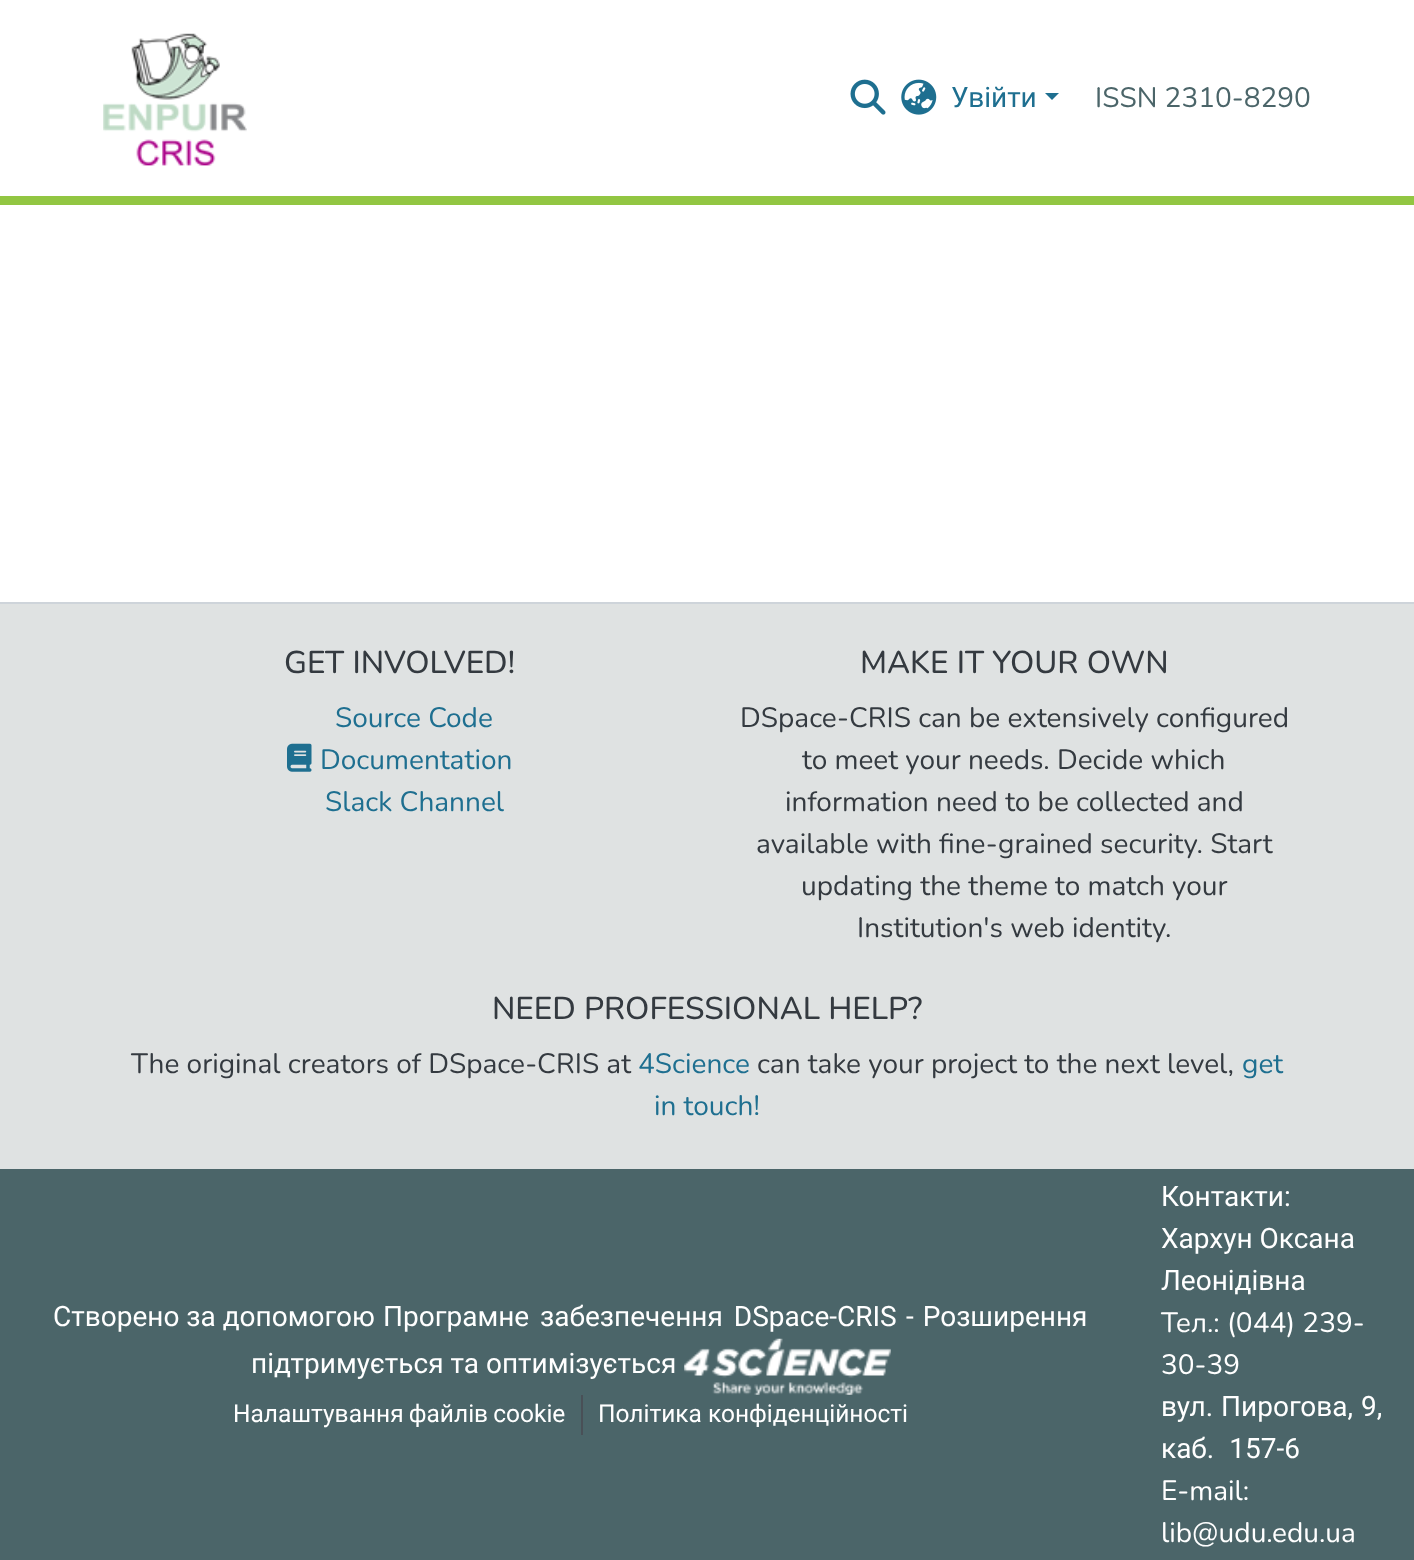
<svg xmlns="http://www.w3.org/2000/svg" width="1414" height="1560">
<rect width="100%" height="100%" fill="#fff"/>
<rect y="196" width="1414" height="9" fill="#92c642"/>
<image x="103" y="33" width="144" height="133" href="media/1.png"/>
<image x="850" y="79" width="36" height="36" href="media/2.png"/>
<image x="901" y="79" width="36" height="36" href="media/3.png"/>
<text x="951" y="107" style="font-family:Roboto;font-size:28px;fill:#1e6f90">Увійти</text>
<path d="M1045 93h14l-7 7z" fill="#1e6f90"/>
<text x="1095" y="107" style="font-family:Nunito;font-size:28px;fill:#4b6569">ISSN 2310-8290</text>
<rect y="602" width="1414" height="2" fill="#ced4da"/>
<rect y="604" width="1414" height="565" fill="#dfe2e2"/>
<text x="284" y="673" style="font-family:Nunito;font-size:31.5px;font-weight:500;fill:#343a40">GET INVOLVED!</text>
<text x="335" y="727" style="font-family:Nunito;font-size:28px;fill:#1e6f90">Source Code</text>
<image x="287" y="743" width="25" height="29" href="media/4.png"/>
<text x="320" y="769" style="font-family:Nunito;font-size:28px;fill:#1e6f90">Documentation</text>
<text x="325" y="811" style="font-family:Nunito;font-size:28px;fill:#1e6f90">Slack Channel</text>
<text x="860" y="673" style="font-family:Nunito;font-size:31.5px;font-weight:500;fill:#343a40">MAKE IT YOUR OWN</text>
<text x="740" y="727" style="font-family:Nunito;font-size:28px;fill:#343a40">DSpace-CRIS can be extensively configured</text>
<text x="802" y="769" style="font-family:Nunito;font-size:28px;fill:#343a40">to meet your needs. Decide which</text>
<text x="785" y="811" style="font-family:Nunito;font-size:28px;fill:#343a40">information need to be collected and</text>
<text x="756" y="853" style="font-family:Nunito;font-size:28px;fill:#343a40">available with fine-grained security. Start</text>
<text x="801" y="895" style="font-family:Nunito;font-size:28px;fill:#343a40">updating the theme to match your</text>
<text x="857" y="937" style="font-family:Nunito;font-size:28px;fill:#343a40">Institution's web identity.</text>
<text x="492" y="1019" style="font-family:Nunito;font-size:31.5px;font-weight:500;fill:#343a40">NEED PROFESSIONAL HELP?</text>
<text x="131" y="1073" style="font-family:Nunito;font-size:28px;fill:#343a40">The original creators of DSpace-CRIS at</text>
<text x="638" y="1073" style="font-family:Nunito;font-size:28px;fill:#1e6f90">4Science</text>
<text x="757" y="1073" style="font-family:Nunito;font-size:28px;fill:#343a40">can take your project to the next level,</text>
<text x="1242" y="1073" style="font-family:Nunito;font-size:28px;fill:#1e6f90">get</text>
<text x="654" y="1115" style="font-family:Nunito;font-size:28px;fill:#1e6f90">in touch!</text>
<rect y="1169" width="1414" height="391" fill="#4b6569"/>
<text x="53" y="1326" style="font-family:Roboto;font-size:28px;fill:#fff">Створено за допомогою</text>
<text x="383" y="1326" word-spacing="4" style="font-family:Roboto;font-size:28px;fill:#fff">Програмне забезпечення DSpace-CRIS</text>
<text x="906" y="1326" word-spacing="2" style="font-family:Roboto;font-size:28px;fill:#fff">- Розширення</text>
<text x="251" y="1373" style="font-family:Roboto;font-size:28px;fill:#fff">підтримується та оптимізується</text>
<image x="684" y="1338" width="207" height="57" href="media/5.png"/>
<text x="233" y="1422" word-spacing="-1" style="font-family:Roboto;font-size:24.5px;fill:#fff">Налаштування файлів cookie</text>
<rect x="581" y="1395" width="2" height="40" fill="#495057"/>
<text x="598" y="1422" style="font-family:Roboto;font-size:24.5px;fill:#fff">Політика конфіденційності</text>
<text x="1161" y="1206" style="font-family:Roboto;font-size:28px;fill:#fff">Контакти:</text>
<text x="1161" y="1248" style="font-family:Roboto;font-size:28px;fill:#fff">Хархун Оксана</text>
<text x="1161" y="1290" style="font-family:Roboto;font-size:28px;fill:#fff">Леонідівна</text>
<text x="1161" y="1332" style="font-family:Nunito;font-size:28px;fill:#fff">Тел.: (044) 239-</text>
<text x="1161" y="1374" style="font-family:Nunito;font-size:28px;fill:#fff">30-39</text>
<text x="1161" y="1416" word-spacing="1" style="font-family:Roboto;font-size:28px;fill:#fff">вул. Пирогова, 9,</text>
<text x="1161" y="1458" word-spacing="8" style="font-family:Roboto;font-size:28px;fill:#fff">каб. 157-6</text>
<text x="1161" y="1500" style="font-family:Nunito;font-size:28px;fill:#fff">E-mail:</text>
<text x="1161" y="1542" style="font-family:Nunito;font-size:28px;fill:#fff">lib@udu.edu.ua</text>
</svg>
